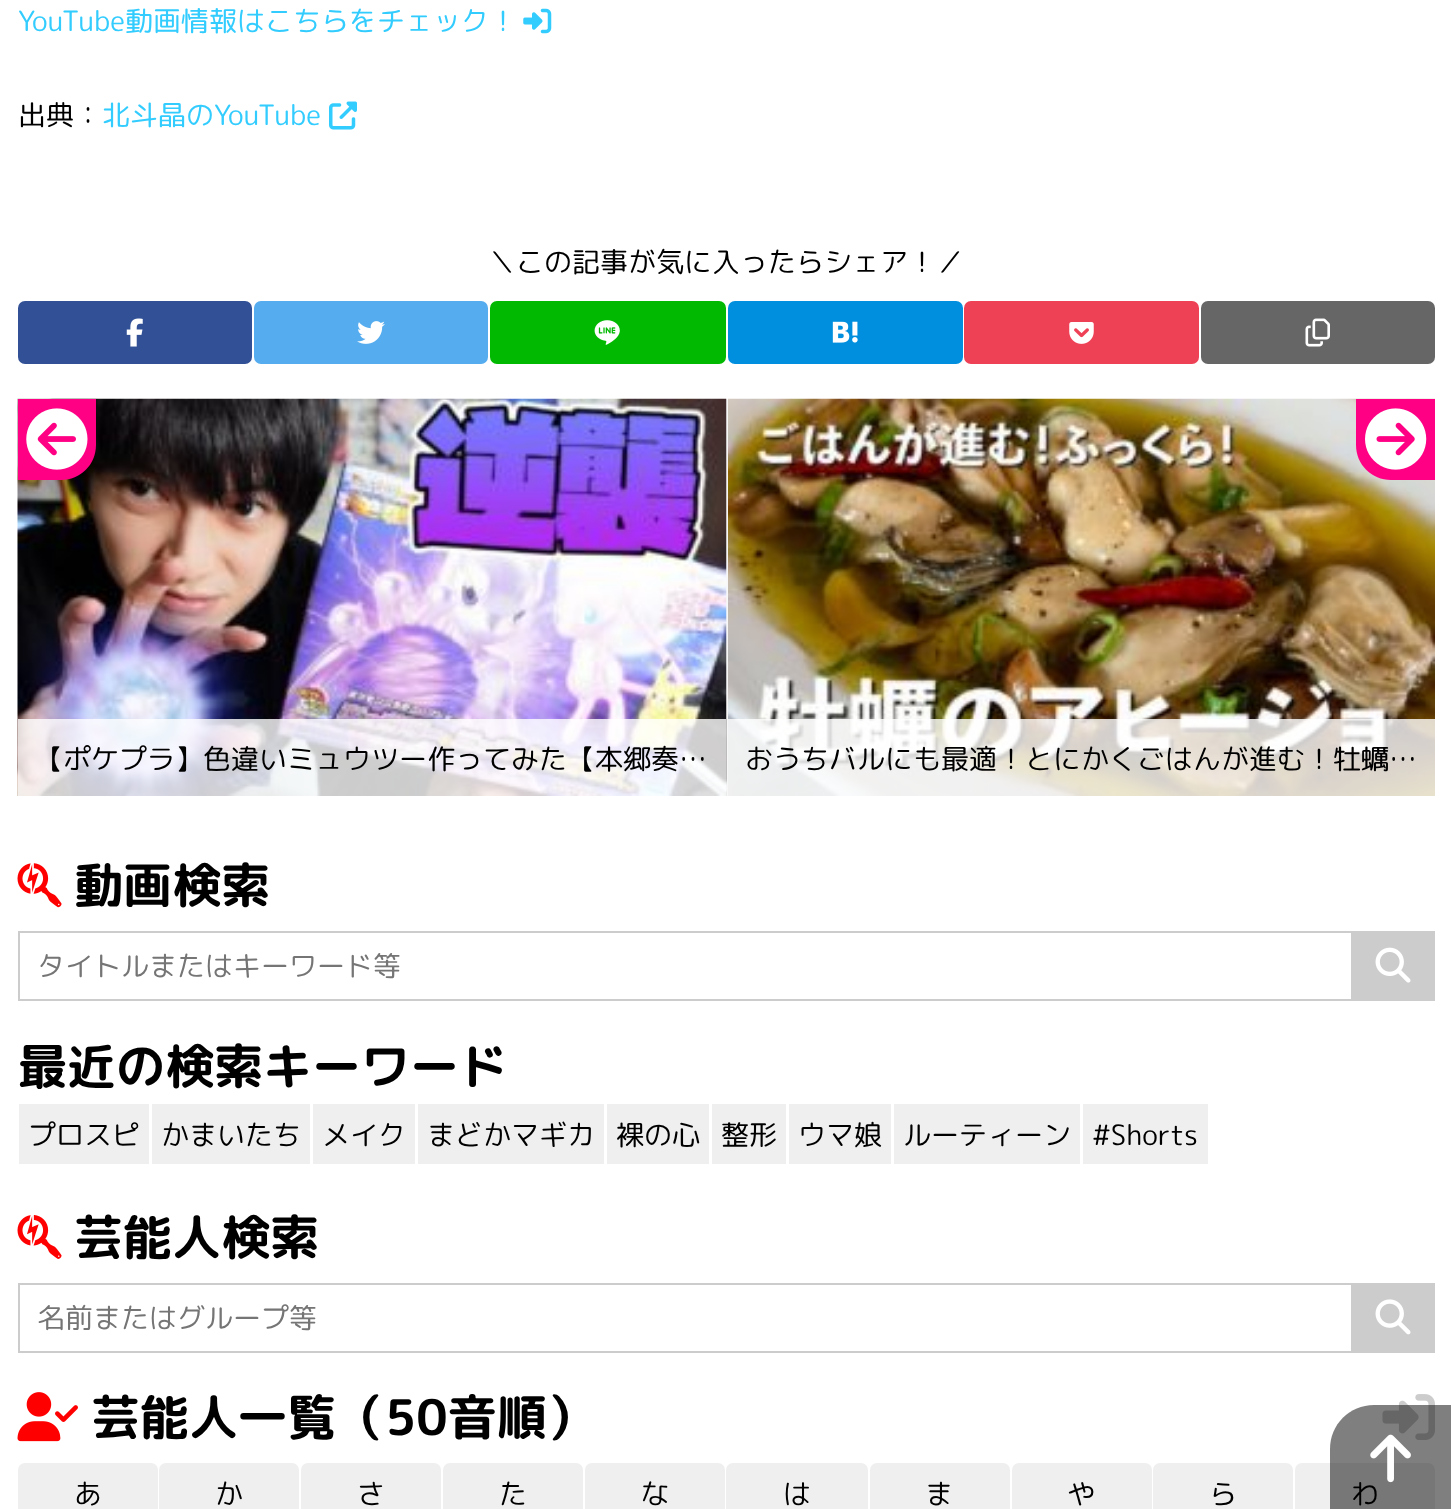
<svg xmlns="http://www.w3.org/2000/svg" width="1451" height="1509">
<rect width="100%" height="100%" fill="#fff"/>
<text x="18" y="31" style="font-family:'Rounded Mplus 1c';font-size:28px;fill:#3cf">YouTube動画情報はこちらをチェック！</text>
<image x="523" y="8" width="29" height="26" href="media/1.png"/>
<text x="18" y="125" style="font-family:'Rounded Mplus 1c';font-size:28px;fill:#000">出典：</text>
<text x="102" y="125" style="font-family:'Rounded Mplus 1c';font-size:28px;fill:#3cf">北斗晶のYouTube</text>
<image x="329" y="101" width="28" height="29" href="media/2.png"/>
<text x="488" y="272" style="font-family:'Rounded Mplus 1c';font-size:28px;fill:#000">＼この記事が気に入ったらシェア！／</text>
<rect x="18" y="301" width="234" height="63" rx="7" fill="#315096"/>
<image x="126" y="318" width="17" height="29" href="media/3.png"/>
<rect x="254" y="301" width="234" height="63" rx="7" fill="#55acee"/>
<image x="357" y="321" width="28" height="23" href="media/4.png"/>
<rect x="490" y="301" width="236" height="63" rx="7" fill="#00b900"/>
<image x="594" y="320" width="26" height="25" href="media/5.png"/>
<rect x="728" y="301" width="235" height="63" rx="7" fill="#008fde"/>
<image x="832" y="321" width="26" height="22" href="media/6.png"/>
<rect x="964" y="301" width="235" height="63" rx="7" fill="#ef4156"/>
<image x="1069" y="322" width="25" height="22" href="media/7.png"/>
<rect x="1201" y="301" width="234" height="63" rx="7" fill="#666"/>
<image x="1305" y="318" width="25" height="29" href="media/8.png"/>
<rect x="726" y="399" width="2" height="397" fill="#f7f7f7"/>
<image x="17" y="398" width="710" height="398" href="media/9.png"/>
<path d="M18 399h78v46c0 19.5-15.5 35-35 35h-43z" fill="#ff0085"/>
<image x="26" y="408" width="62" height="62" href="media/10.png"/>
<rect x="18" y="719" width="708" height="77" fill="#ffffffcc"/>
<text x="35" y="769" style="font-family:'Rounded Mplus 1c';font-size:28px;fill:#000">【ポケプラ】色違いミュウツー作ってみた【本郷奏…</text>
<image x="728" y="398" width="707" height="398" href="media/11.png"/>
<path d="M1356 399h79v81h-44c-19.5 0-35-15.5-35-35z" fill="#ff0085"/>
<image x="1365" y="408" width="62" height="62" href="media/12.png"/>
<rect x="728" y="719" width="707" height="77" fill="#ffffffcc"/>
<text x="745" y="769" style="font-family:'Rounded Mplus 1c';font-size:28px;fill:#000">おうちバルにも最適！とにかくごはんが進む！牡蠣…</text>
<image x="17" y="863" width="45" height="45" href="media/13.png"/>
<text x="74" y="903" style="font-family:'Rounded Mplus 1c Bold';font-size:49px;font-weight:bold;fill:#000">動画検索</text>
<rect x="19" y="932" width="1333" height="68" fill="none" stroke="#ccc" stroke-width="2"/>
<text x="37" y="976" style="font-family:'Rounded Mplus 1c';font-size:28px;fill:#757575">タイトルまたはキーワード等</text>
<rect x="1353" y="931" width="82" height="70" fill="#ccc"/>
<image x="1375" y="947" width="36" height="36" href="media/14.png"/>
<text x="18" y="1084" style="font-family:'Rounded Mplus 1c Bold';font-size:49px;font-weight:bold;fill:#000">最近の検索キーワード</text>
<rect x="19" y="1104" width="130" height="60" fill="#efefef"/>
<text x="28" y="1145" style="font-family:'Rounded Mplus 1c';font-size:28px;fill:#000">プロスピ</text>
<rect x="152" y="1104" width="158" height="60" fill="#efefef"/>
<text x="161" y="1145" style="font-family:'Rounded Mplus 1c';font-size:28px;fill:#000">かまいたち</text>
<rect x="313" y="1104" width="102" height="60" fill="#efefef"/>
<text x="322" y="1145" style="font-family:'Rounded Mplus 1c';font-size:28px;fill:#000">メイク</text>
<rect x="418" y="1104" width="186" height="60" fill="#efefef"/>
<text x="427" y="1145" style="font-family:'Rounded Mplus 1c';font-size:28px;fill:#000">まどかマギカ</text>
<rect x="607" y="1104" width="102" height="60" fill="#efefef"/>
<text x="616" y="1145" style="font-family:'Rounded Mplus 1c';font-size:28px;fill:#000">裸の心</text>
<rect x="712" y="1104" width="74" height="60" fill="#efefef"/>
<text x="721" y="1145" style="font-family:'Rounded Mplus 1c';font-size:28px;fill:#000">整形</text>
<rect x="789" y="1104" width="102" height="60" fill="#efefef"/>
<text x="798" y="1145" style="font-family:'Rounded Mplus 1c';font-size:28px;fill:#000">ウマ娘</text>
<rect x="894" y="1104" width="186" height="60" fill="#efefef"/>
<text x="903" y="1145" style="font-family:'Rounded Mplus 1c';font-size:28px;fill:#000">ルーティーン</text>
<rect x="1083" y="1104" width="125" height="60" fill="#efefef"/>
<text x="1092" y="1145" style="font-family:'Rounded Mplus 1c';font-size:28px;fill:#000">#Shorts</text>
<image x="17" y="1215" width="45" height="44" href="media/15.png"/>
<text x="74" y="1255" style="font-family:'Rounded Mplus 1c Bold';font-size:49px;font-weight:bold;fill:#000">芸能人検索</text>
<rect x="19" y="1284" width="1333" height="68" fill="none" stroke="#ccc" stroke-width="2"/>
<text x="37" y="1328" style="font-family:'Rounded Mplus 1c';font-size:28px;fill:#757575">名前またはグループ等</text>
<rect x="1353" y="1283" width="82" height="70" fill="#ccc"/>
<image x="1375" y="1299" width="36" height="36" href="media/16.png"/>
<image x="17" y="1392" width="61" height="50" href="media/17.png"/>
<text x="91" y="1435" style="font-family:'Rounded Mplus 1c Bold';font-size:49px;font-weight:bold;fill:#000">芸能人一覧（50音順）</text>
<image x="1382" y="1394" width="53" height="46" href="media/18.png"/>
<rect x="18" y="1463" width="140" height="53" rx="7" fill="#efefef"/>
<text x="74" y="1504" style="font-family:'Rounded Mplus 1c';font-size:28px;fill:#000">あ</text>
<rect x="159" y="1463" width="140" height="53" rx="7" fill="#efefef"/>
<text x="215" y="1504" style="font-family:'Rounded Mplus 1c';font-size:28px;fill:#000">か</text>
<rect x="301" y="1463" width="140" height="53" rx="7" fill="#efefef"/>
<text x="357" y="1504" style="font-family:'Rounded Mplus 1c';font-size:28px;fill:#000">さ</text>
<rect x="443" y="1463" width="140" height="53" rx="7" fill="#efefef"/>
<text x="499" y="1504" style="font-family:'Rounded Mplus 1c';font-size:28px;fill:#000">た</text>
<rect x="585" y="1463" width="140" height="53" rx="7" fill="#efefef"/>
<text x="641" y="1504" style="font-family:'Rounded Mplus 1c';font-size:28px;fill:#000">な</text>
<rect x="726" y="1463" width="142" height="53" rx="7" fill="#efefef"/>
<text x="783" y="1504" style="font-family:'Rounded Mplus 1c';font-size:28px;fill:#000">は</text>
<rect x="870" y="1463" width="140" height="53" rx="7" fill="#efefef"/>
<text x="925" y="1504" style="font-family:'Rounded Mplus 1c';font-size:28px;fill:#000">ま</text>
<rect x="1012" y="1463" width="140" height="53" rx="7" fill="#efefef"/>
<text x="1067" y="1504" style="font-family:'Rounded Mplus 1c';font-size:28px;fill:#000">や</text>
<rect x="1153" y="1463" width="140" height="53" rx="7" fill="#efefef"/>
<text x="1209" y="1504" style="font-family:'Rounded Mplus 1c';font-size:28px;fill:#000">ら</text>
<rect x="1295" y="1463" width="140" height="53" rx="7" fill="#efefef"/>
<text x="1351" y="1504" style="font-family:'Rounded Mplus 1c';font-size:28px;fill:#000">わ</text>
<path d="M1374 1405h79v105h-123v-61c0-24.5 19.5-44 44-44z" fill="#00000080"/>
<image x="1370" y="1434" width="41" height="49" href="media/19.png"/>
</svg>
